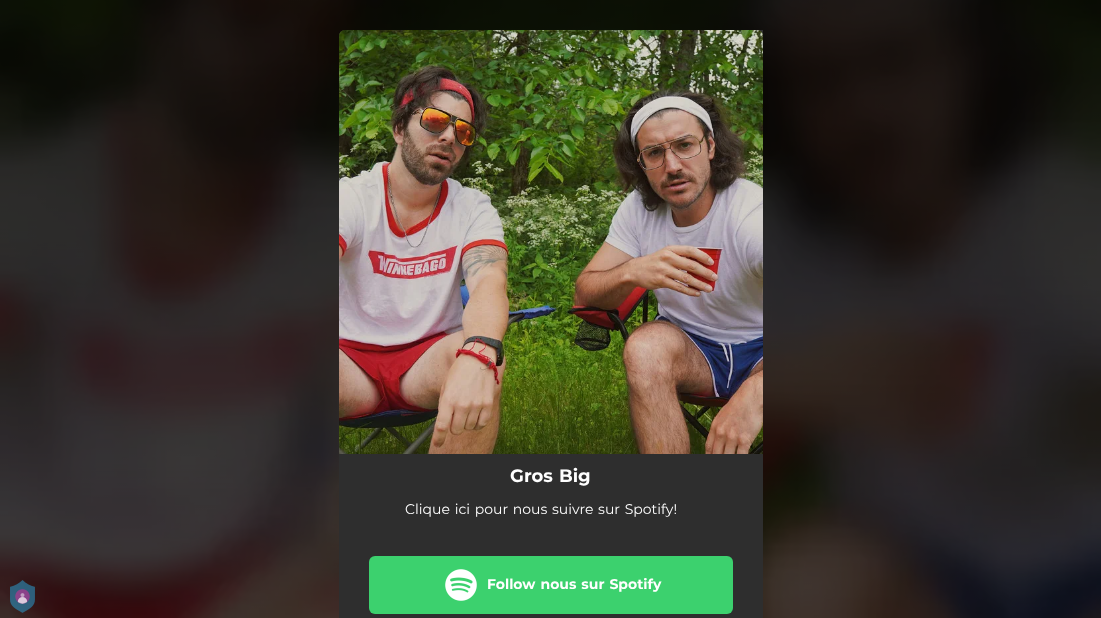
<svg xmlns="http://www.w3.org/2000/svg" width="1101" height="618">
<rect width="100%" height="100%" fill="#fff"/>
<image x="0" y="0" width="1101" height="618" href="media/1.png"/>
<path d="M345 30h418v424h-418c-3.5 0-6-2.5-6-6v-412c0-3.5 2.5-6 6-6z" fill="#2f2f2f"/>
<image x="339" y="30" width="424" height="424" href="media/2.png"/>
<rect x="339" y="454" width="424" height="164" fill="#2e2e2e"/>
<text x="510" y="482" word-spacing="1" style="font-family:Montserrat;font-size:18px;font-weight:bold;fill:#fff">Gros Big</text>
<text x="405" y="514" word-spacing="1" style="font-family:Montserrat;font-size:14px;fill:#fff">Clique ici pour nous suivre sur Spotify!</text>
<rect x="369" y="556" width="364" height="58" rx="6" fill="#3cd16e"/>
<image x="445" y="569" width="32" height="32" href="media/3.png"/>
<text x="487" y="589" word-spacing="1" style="font-family:Montserrat;font-size:14px;font-weight:bold;fill:#fff">Follow nous sur Spotify</text>
<image x="10" y="580" width="25" height="33" href="media/4.png"/>
</svg>
